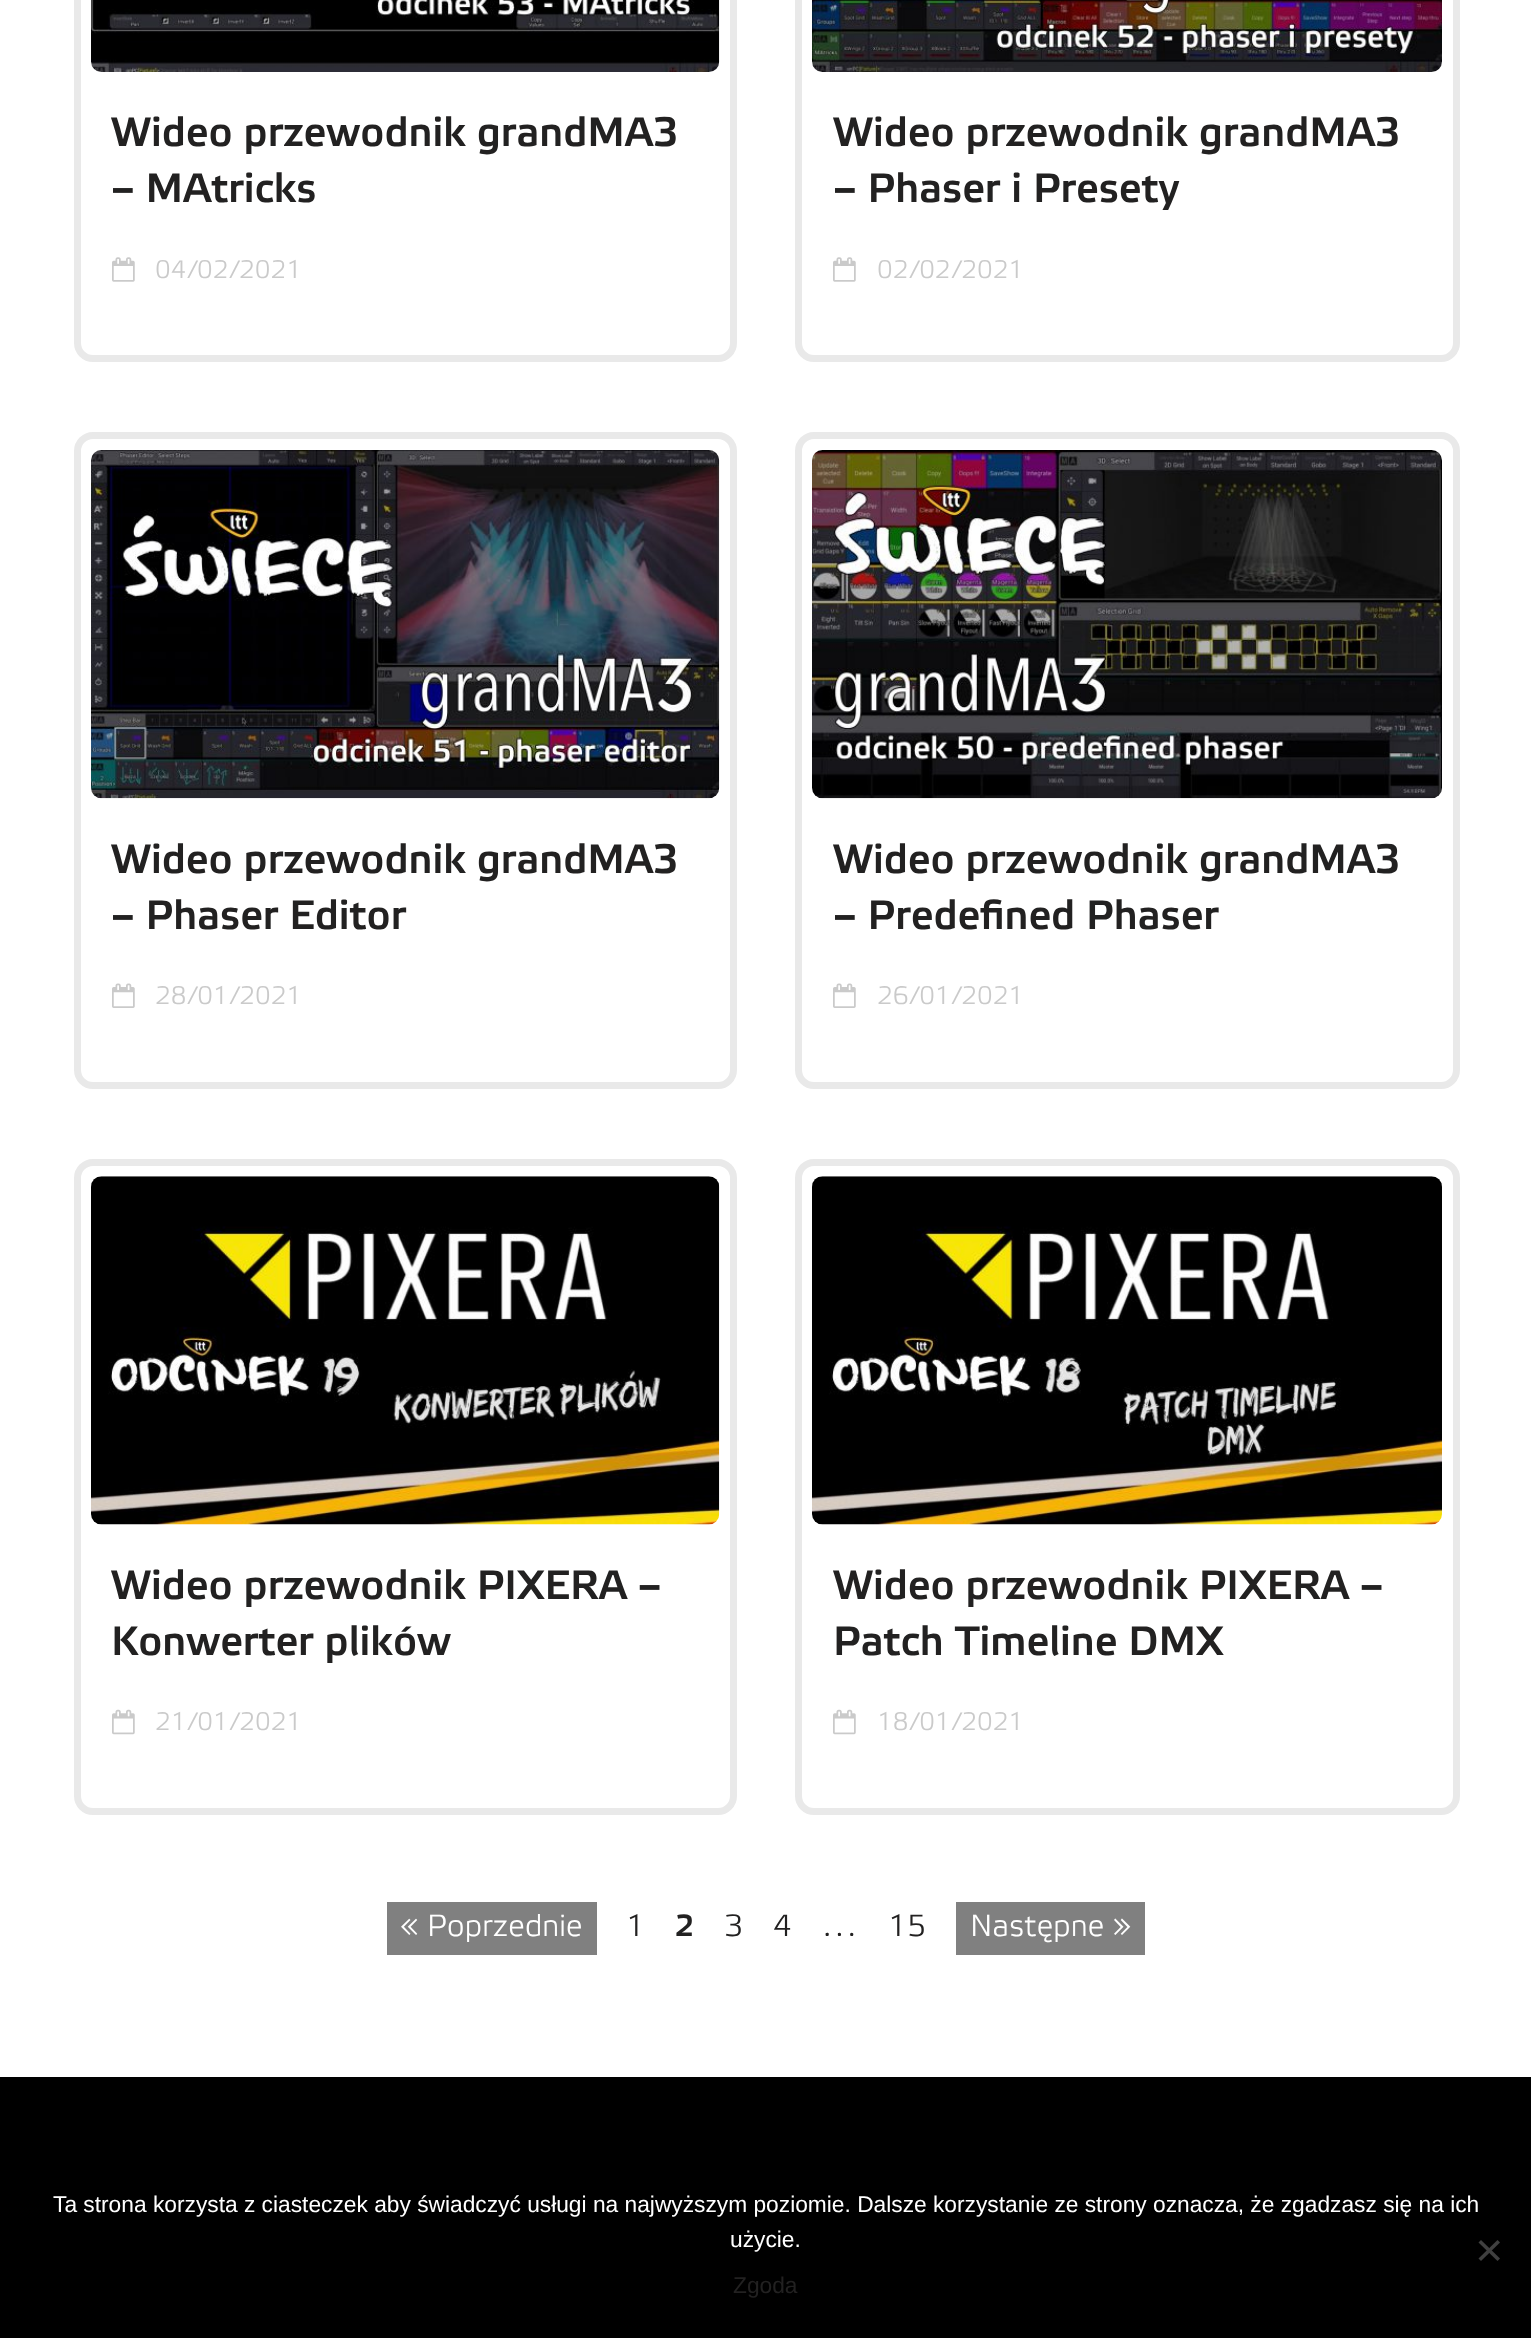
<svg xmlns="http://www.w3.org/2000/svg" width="1531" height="2338">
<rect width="100%" height="100%" fill="#fff"/>
<rect x="77.5" y="-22.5" width="656" height="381" rx="15.5" fill="none" stroke="#e9e9e9" stroke-width="7"/>
<image x="91" y="0" width="629" height="72" href="media/1.png"/>
<text x="111" y="146" style="font-family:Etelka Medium;font-size:40.25px;font-weight:500;fill:#222121">Wideo przewodnik grandMA3</text>
<text x="111" y="202" style="font-family:Etelka Medium;font-size:40.25px;font-weight:500;fill:#222121">– MAtricks</text>
<image x="112" y="257" width="23" height="25" href="media/2.png"/>
<text x="155" y="278" style="font-family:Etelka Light;font-size:24.5px;font-weight:300;fill:#cacaca">04/02/2021</text>
<rect x="798.5" y="-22.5" width="658" height="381" rx="15.5" fill="none" stroke="#e9e9e9" stroke-width="7"/>
<image x="812" y="0" width="630" height="72" href="media/3.png"/>
<text x="833" y="146" style="font-family:Etelka Medium;font-size:40.25px;font-weight:500;fill:#222121">Wideo przewodnik grandMA3</text>
<text x="833" y="202" style="font-family:Etelka Medium;font-size:40.25px;font-weight:500;fill:#222121">– Phaser i Presety</text>
<image x="833" y="257" width="23" height="25" href="media/2.png"/>
<text x="877" y="278" style="font-family:Etelka Light;font-size:24.5px;font-weight:300;fill:#cacaca">02/02/2021</text>
<rect x="77.5" y="435.5" width="656" height="650" rx="15.5" fill="none" stroke="#e9e9e9" stroke-width="7"/>
<image x="91" y="450" width="629" height="349" href="media/4.png"/>
<text x="111" y="873" style="font-family:Etelka Medium;font-size:40.25px;font-weight:500;fill:#222121">Wideo przewodnik grandMA3</text>
<text x="111" y="929" style="font-family:Etelka Medium;font-size:40.25px;font-weight:500;fill:#222121">– Phaser Editor</text>
<image x="112" y="983" width="23" height="25" href="media/5.png"/>
<text x="155" y="1004" style="font-family:Etelka Light;font-size:24.5px;font-weight:300;fill:#cacaca">28/01/2021</text>
<rect x="798.5" y="435.5" width="658" height="650" rx="15.5" fill="none" stroke="#e9e9e9" stroke-width="7"/>
<image x="812" y="450" width="630" height="349" href="media/6.png"/>
<text x="833" y="873" style="font-family:Etelka Medium;font-size:40.25px;font-weight:500;fill:#222121">Wideo przewodnik grandMA3</text>
<text x="833" y="929" style="font-family:Etelka Medium;font-size:40.25px;font-weight:500;fill:#222121">– Predefined Phaser</text>
<image x="833" y="983" width="23" height="25" href="media/5.png"/>
<text x="877" y="1004" style="font-family:Etelka Light;font-size:24.5px;font-weight:300;fill:#cacaca">26/01/2021</text>
<rect x="77.5" y="1162.5" width="656" height="649" rx="15.5" fill="none" stroke="#e9e9e9" stroke-width="7"/>
<image x="91" y="1176" width="629" height="349" href="media/7.png"/>
<text x="111" y="1599" style="font-family:Etelka Medium;font-size:40.25px;font-weight:500;fill:#222121">Wideo przewodnik PIXERA –</text>
<text x="111" y="1655" style="font-family:Etelka Medium;font-size:40.25px;font-weight:500;fill:#222121">Konwerter plików</text>
<image x="112" y="1709" width="23" height="26" href="media/8.png"/>
<text x="155" y="1730" style="font-family:Etelka Light;font-size:24.5px;font-weight:300;fill:#cacaca">21/01/2021</text>
<rect x="798.5" y="1162.5" width="658" height="649" rx="15.5" fill="none" stroke="#e9e9e9" stroke-width="7"/>
<image x="812" y="1176" width="630" height="349" href="media/9.png"/>
<text x="833" y="1599" style="font-family:Etelka Medium;font-size:40.25px;font-weight:500;fill:#222121">Wideo przewodnik PIXERA –</text>
<text x="833" y="1655" style="font-family:Etelka Medium;font-size:40.25px;font-weight:500;fill:#222121">Patch Timeline DMX</text>
<image x="833" y="1709" width="23" height="26" href="media/8.png"/>
<text x="877" y="1730" style="font-family:Etelka Light;font-size:24.5px;font-weight:300;fill:#cacaca">18/01/2021</text>
<rect x="387" y="1902" width="210" height="53" fill="#808080"/>
<text x="400" y="1936" style="font-family:Etelka Light;font-size:29.75px;font-weight:300;fill:#fff">« Poprzednie</text>
<text x="626" y="1936" style="font-family:Etelka Light;font-size:29.75px;font-weight:300;fill:#222121">1</text>
<text x="675" y="1936" style="font-family:Etelka Medium;font-size:29.75px;font-weight:500;fill:#222121">2</text>
<text x="724" y="1936" style="font-family:Etelka Light;font-size:29.75px;font-weight:300;fill:#222121">3</text>
<text x="773" y="1936" style="font-family:Etelka Light;font-size:29.75px;font-weight:300;fill:#222121">4</text>
<text x="821" y="1936" style="font-family:Etelka Light;font-size:29.75px;font-weight:300;fill:#222121">…</text>
<text x="888" y="1936" style="font-family:Etelka Light;font-size:29.75px;font-weight:300;fill:#222121">15</text>
<rect x="956" y="1902" width="189" height="53" fill="#808080"/>
<text x="970" y="1936" style="font-family:Etelka Light;font-size:29.75px;font-weight:300;fill:#fff">Następne »</text>
<rect y="2077" width="1531" height="261" fill="#000"/>
<text x="53" y="2212" style="font-family:Liberation Sans;font-size:22.75px;fill:#fff">Ta strona korzysta z ciasteczek aby świadczyć usługi na najwyższym poziomie. Dalsze korzystanie ze strony oznacza, że zgadzasz się na ich</text>
<text x="730" y="2247" style="font-family:Liberation Sans;font-size:22.75px;fill:#fff">użycie.</text>
<path d="M1497.5 2240l2.5 2.5l-19 18.5l-2.5-2.5z" fill="#404040"/>
<path d="M1478.5 2242.5l2.5-2.5l19 18.5l-2.5 2.5z" fill="#404040"/>
<text x="733" y="2293" style="font-family:Liberation Sans;font-size:22.75px;fill:#222121">Zgoda</text>
</svg>
